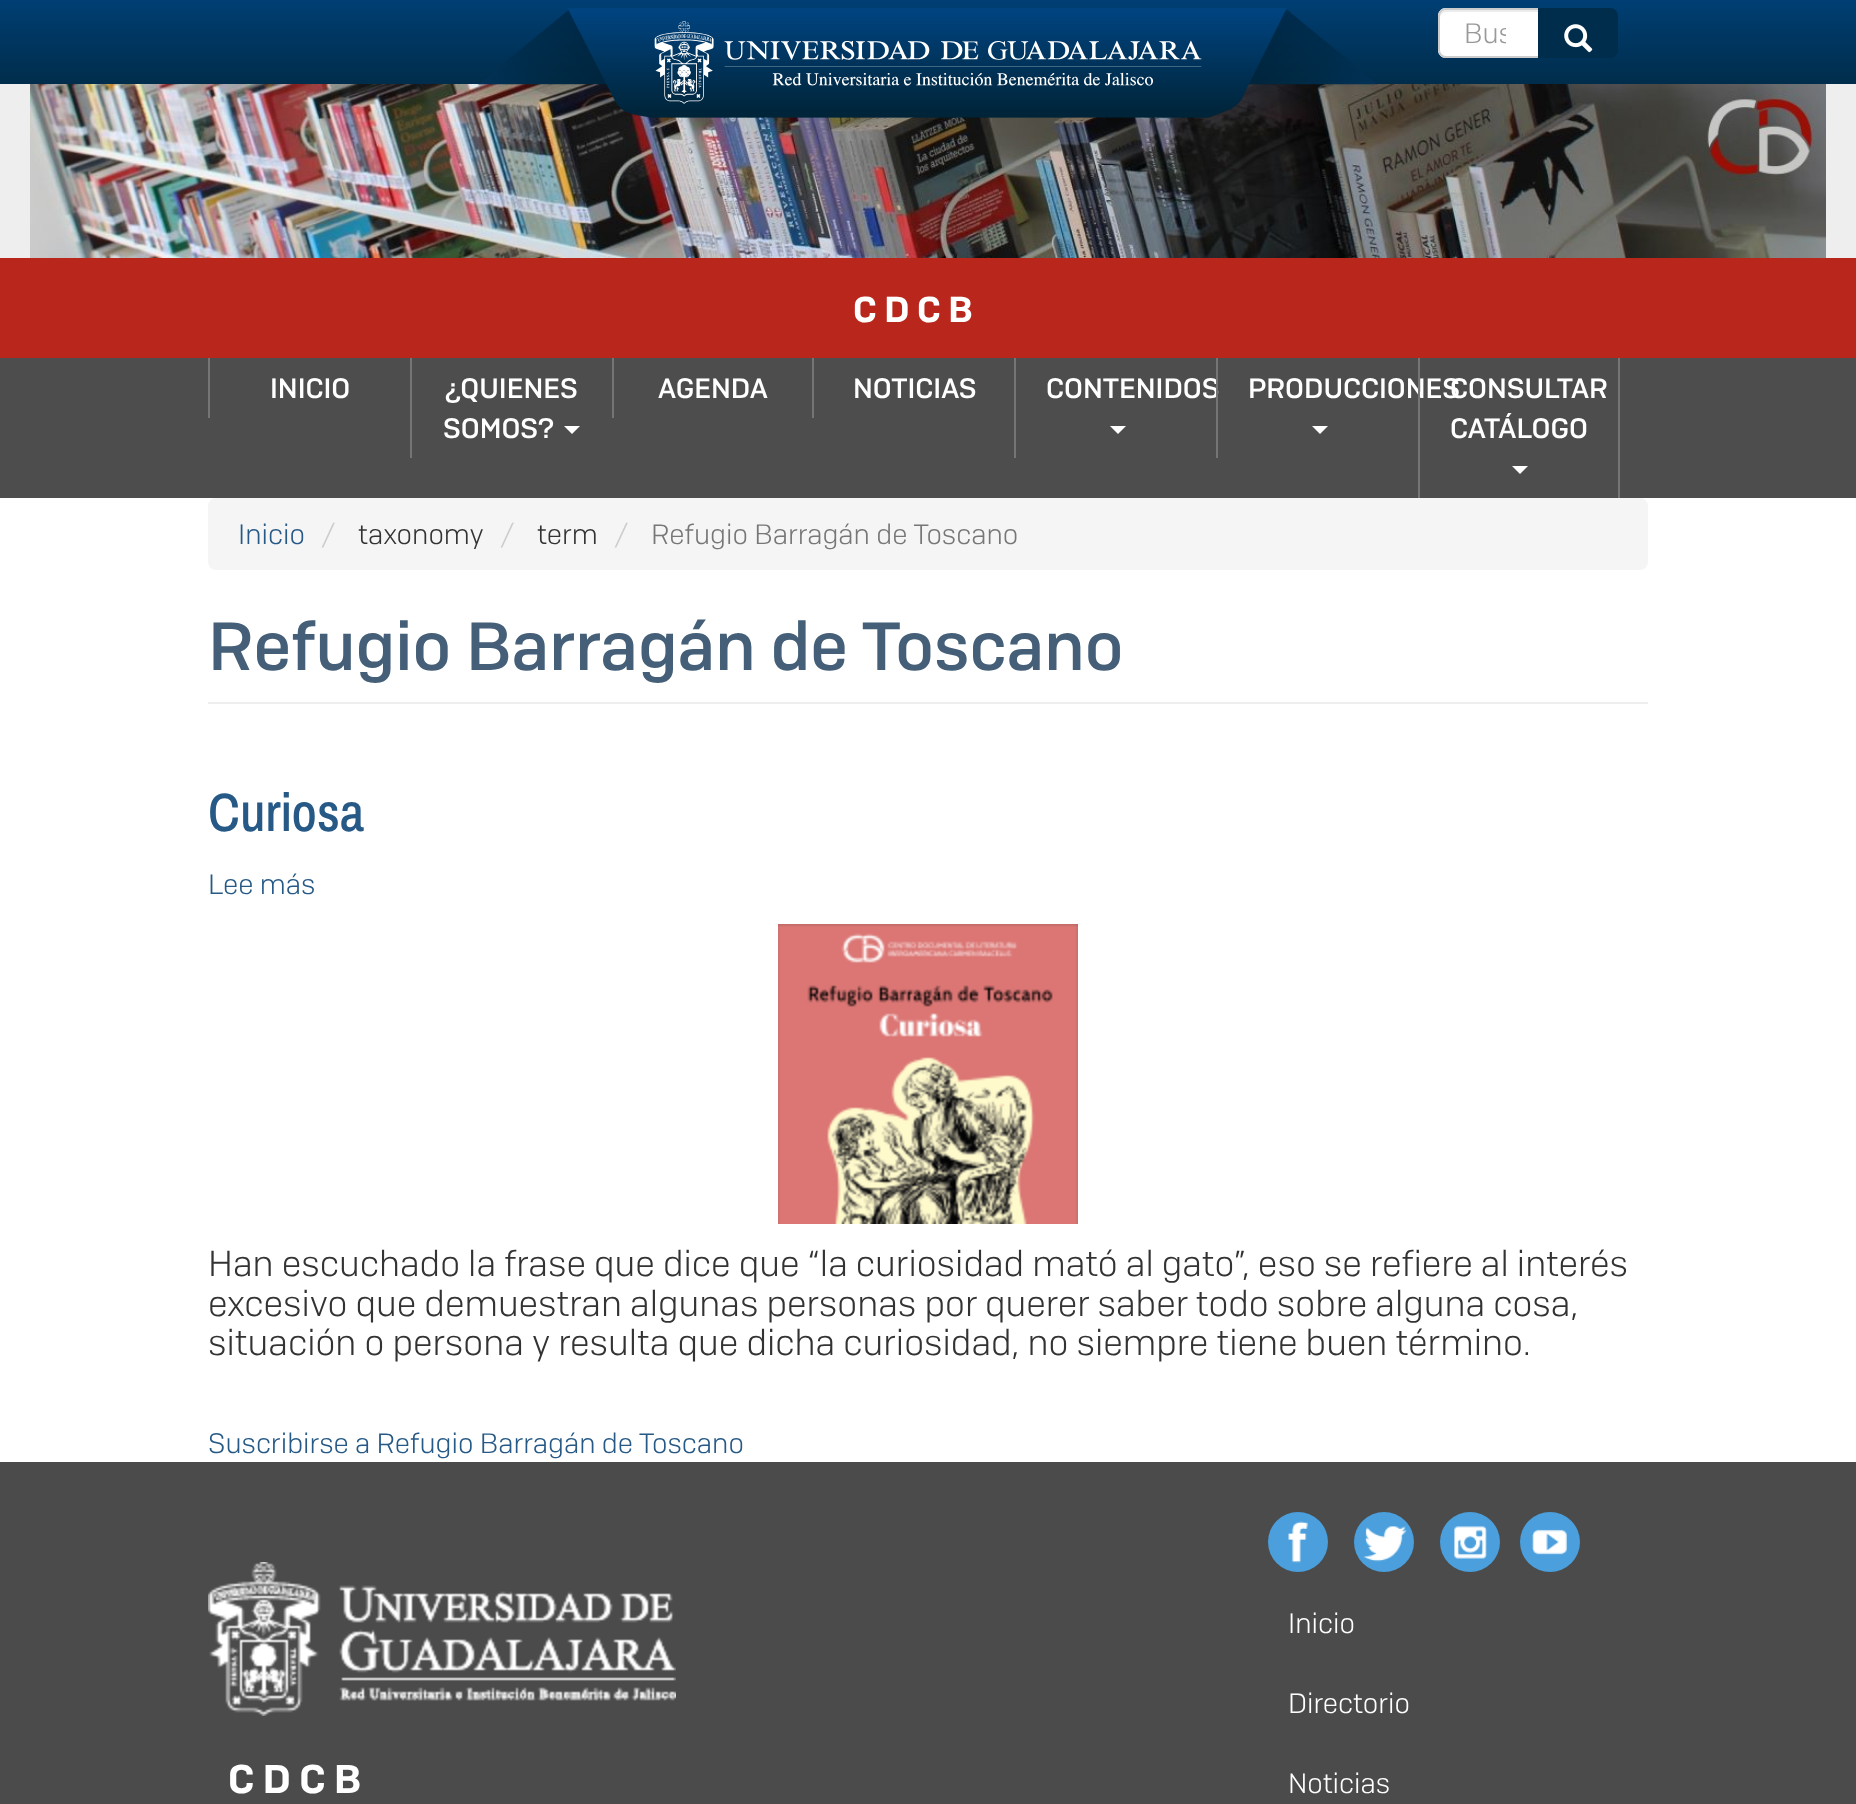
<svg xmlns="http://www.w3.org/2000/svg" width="1856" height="1804">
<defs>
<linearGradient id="g1" gradientUnits="userSpaceOnUse" x1="928" y1="-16" x2="928" y2="84"><stop offset="0" stop-color="#00427b"/><stop offset="1" stop-color="#002d4b"/></linearGradient>
<clipPath id="clip1"><rect x="1464" y="16" width="42" height="36"/></clipPath>
</defs>
<rect width="100%" height="100%" fill="#fff"/>
<rect width="1856" height="84" fill="url(#g1)"/>
<rect y="84" width="1856" height="174" fill="#eee"/>
<image x="30" y="84" width="1796" height="174" href="media/3.png"/>
<image x="478" y="8" width="900" height="110" href="media/1.png"/>
<path d="M1446 8h94v50h-94c-4.5 0-8-3.5-8-8v-34c0-4.5 3.5-8 8-8z" fill="#fff"/>
<path d="M1446 12h92v-2h-92c-3 0-6 3-6 6v2c0-3 3-6 6-6z" fill="#ececec"/>
<path d="M1446 9h93v48h-93c-4 0-7-3-7-7v-34c0-4 3-7 7-7z" fill="none" stroke="#ccc" stroke-width="2"/>
<g clip-path="url(#clip1)">
<text x="1464" y="43" style="font-family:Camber;font-size:28px;font-weight:300;fill:#999">Bus</text>
</g>
<path d="M1539 9h71c4 0 7 3 7 7v34c0 4-3 7-7 7h-71z" fill="#002d4b" stroke="#002d4b" stroke-width="2"/>
<image x="1564" y="24" width="29" height="29" href="media/2.png"/>
<rect y="258" width="1856" height="100" fill="#b9261c"/>
<text x="853" y="322" style="font-family:Camber;font-size:36px;font-weight:600;fill:#fff">C D C B</text>
<rect y="358" width="1856" height="140" fill="#4d4d4d"/>
<rect x="208" y="358" width="2" height="60" fill="#757575"/>
<text x="270" y="398" style="font-family:Camber;font-size:28px;font-weight:500;fill:#fff">INICIO</text>
<rect x="410" y="358" width="2" height="100" fill="#757575"/>
<text x="445" y="398" style="font-family:Camber;font-size:28px;font-weight:500;fill:#fff">¿QUIENES</text>
<text x="443" y="438" style="font-family:Camber;font-size:28px;font-weight:500;fill:#fff">SOMOS?</text>
<path d="M564 426h16l-8 8z" fill="#fff"/>
<rect x="612" y="358" width="2" height="60" fill="#757575"/>
<text x="658" y="398" style="font-family:Camber;font-size:28px;font-weight:500;fill:#fff">AGENDA</text>
<rect x="812" y="358" width="2" height="60" fill="#757575"/>
<text x="853" y="398" style="font-family:Camber;font-size:28px;font-weight:500;fill:#fff">NOTICIAS</text>
<rect x="1014" y="358" width="2" height="100" fill="#757575"/>
<text x="1046" y="398" style="font-family:Camber;font-size:28px;font-weight:500;fill:#fff">CONTENIDOS</text>
<path d="M1110 426h16l-8 8z" fill="#fff"/>
<rect x="1216" y="358" width="2" height="100" fill="#757575"/>
<text x="1248" y="398" style="font-family:Camber;font-size:28px;font-weight:500;fill:#fff">PRODUCCIONES</text>
<path d="M1312 426h16l-8 8z" fill="#fff"/>
<rect x="1618" y="358" width="2" height="140" fill="#757575"/>
<rect x="1418" y="358" width="2" height="140" fill="#757575"/>
<text x="1450" y="398" style="font-family:Camber;font-size:28px;font-weight:500;fill:#fff">CONSULTAR</text>
<text x="1450" y="438" style="font-family:Camber;font-size:28px;font-weight:500;fill:#fff">CATÁLOGO</text>
<path d="M1512 466h16l-8 8z" fill="#fff"/>
<rect x="208" y="498" width="1440" height="72" rx="8" fill="#f5f5f5"/>
<text x="238" y="544" style="font-family:Camber;font-size:28px;font-weight:300;fill:#265986">Inicio</text>
<text x="321" y="544" style="font-family:Camber;font-size:28px;font-weight:300;fill:#ccc">/</text>
<text x="358" y="544" style="font-family:Camber;font-size:28px;font-weight:300;fill:#333">taxonomy</text>
<text x="500" y="544" style="font-family:Camber;font-size:28px;font-weight:300;fill:#ccc">/</text>
<text x="537" y="544" style="font-family:Camber;font-size:28px;font-weight:300;fill:#333">term</text>
<text x="614" y="544" style="font-family:Camber;font-size:28px;font-weight:300;fill:#ccc">/</text>
<text x="651" y="544" style="font-family:Camber;font-size:28px;font-weight:300;fill:#777">Refugio Barragán de Toscano</text>
<rect x="208" y="702" width="1440" height="2" fill="#eee"/>
<text x="208" y="670" style="font-family:Camber;font-size:68px;font-weight:500;fill:#445f77">Refugio Barragán de Toscano</text>
<text x="208" y="831" style="font-family:Archivo Narrow;font-size:54px;font-weight:500;fill:#265986">Curiosa</text>
<text x="208" y="894" style="font-family:Camber;font-size:28px;font-weight:300;fill:#265986">Lee más</text>
<image x="778" y="924" width="300" height="300" href="media/4.png"/>
<text x="208" y="1276" style="font-family:Camber;font-size:36px;font-weight:300;fill:#333">Han escuchado la frase que dice que “la curiosidad mató al gato”, eso se refiere al interés</text>
<text x="208" y="1316" style="font-family:Camber;font-size:36px;font-weight:300;fill:#333">excesivo que demuestran algunas personas por querer saber todo sobre alguna cosa,</text>
<text x="208" y="1355" style="font-family:Camber;font-size:36px;font-weight:300;fill:#333">situación o persona y resulta que dicha curiosidad, no siempre tiene buen término.</text>
<text x="208" y="1453" style="font-family:Camber;font-size:28px;font-weight:300;fill:#265986">Suscribirse a Refugio Barragán de Toscano</text>
<rect y="1462" width="1856" height="342" fill="#4b4b4b"/>
<circle cx="1298" cy="1542" r="30" fill="#4a9fdc"/>
<circle cx="1384" cy="1542" r="30" fill="#4a9fdc"/>
<circle cx="1470" cy="1542" r="30" fill="#4a9fdc"/>
<circle cx="1550" cy="1542" r="30" fill="#4a9fdc"/>
<image x="1288" y="1521" width="20" height="42" href="media/5.png"/>
<image x="1363" y="1526" width="44" height="36" href="media/6.png"/>
<image x="1454" y="1526" width="33" height="33" href="media/7.png"/>
<image x="1532" y="1529" width="35" height="26" href="media/8.png"/>
<image x="208" y="1562" width="468" height="154" href="media/9.png"/>
<text x="228" y="1793" style="font-family:Camber;font-size:40px;font-weight:600;fill:#fff">C D C B</text>
<text x="1288" y="1633" style="font-family:Camber;font-size:28px;font-weight:300;fill:#fff">Inicio</text>
<text x="1288" y="1713" style="font-family:Camber;font-size:28px;font-weight:300;fill:#fff">Directorio</text>
<text x="1288" y="1793" style="font-family:Camber;font-size:28px;font-weight:300;fill:#fff">Noticias</text>
</svg>
